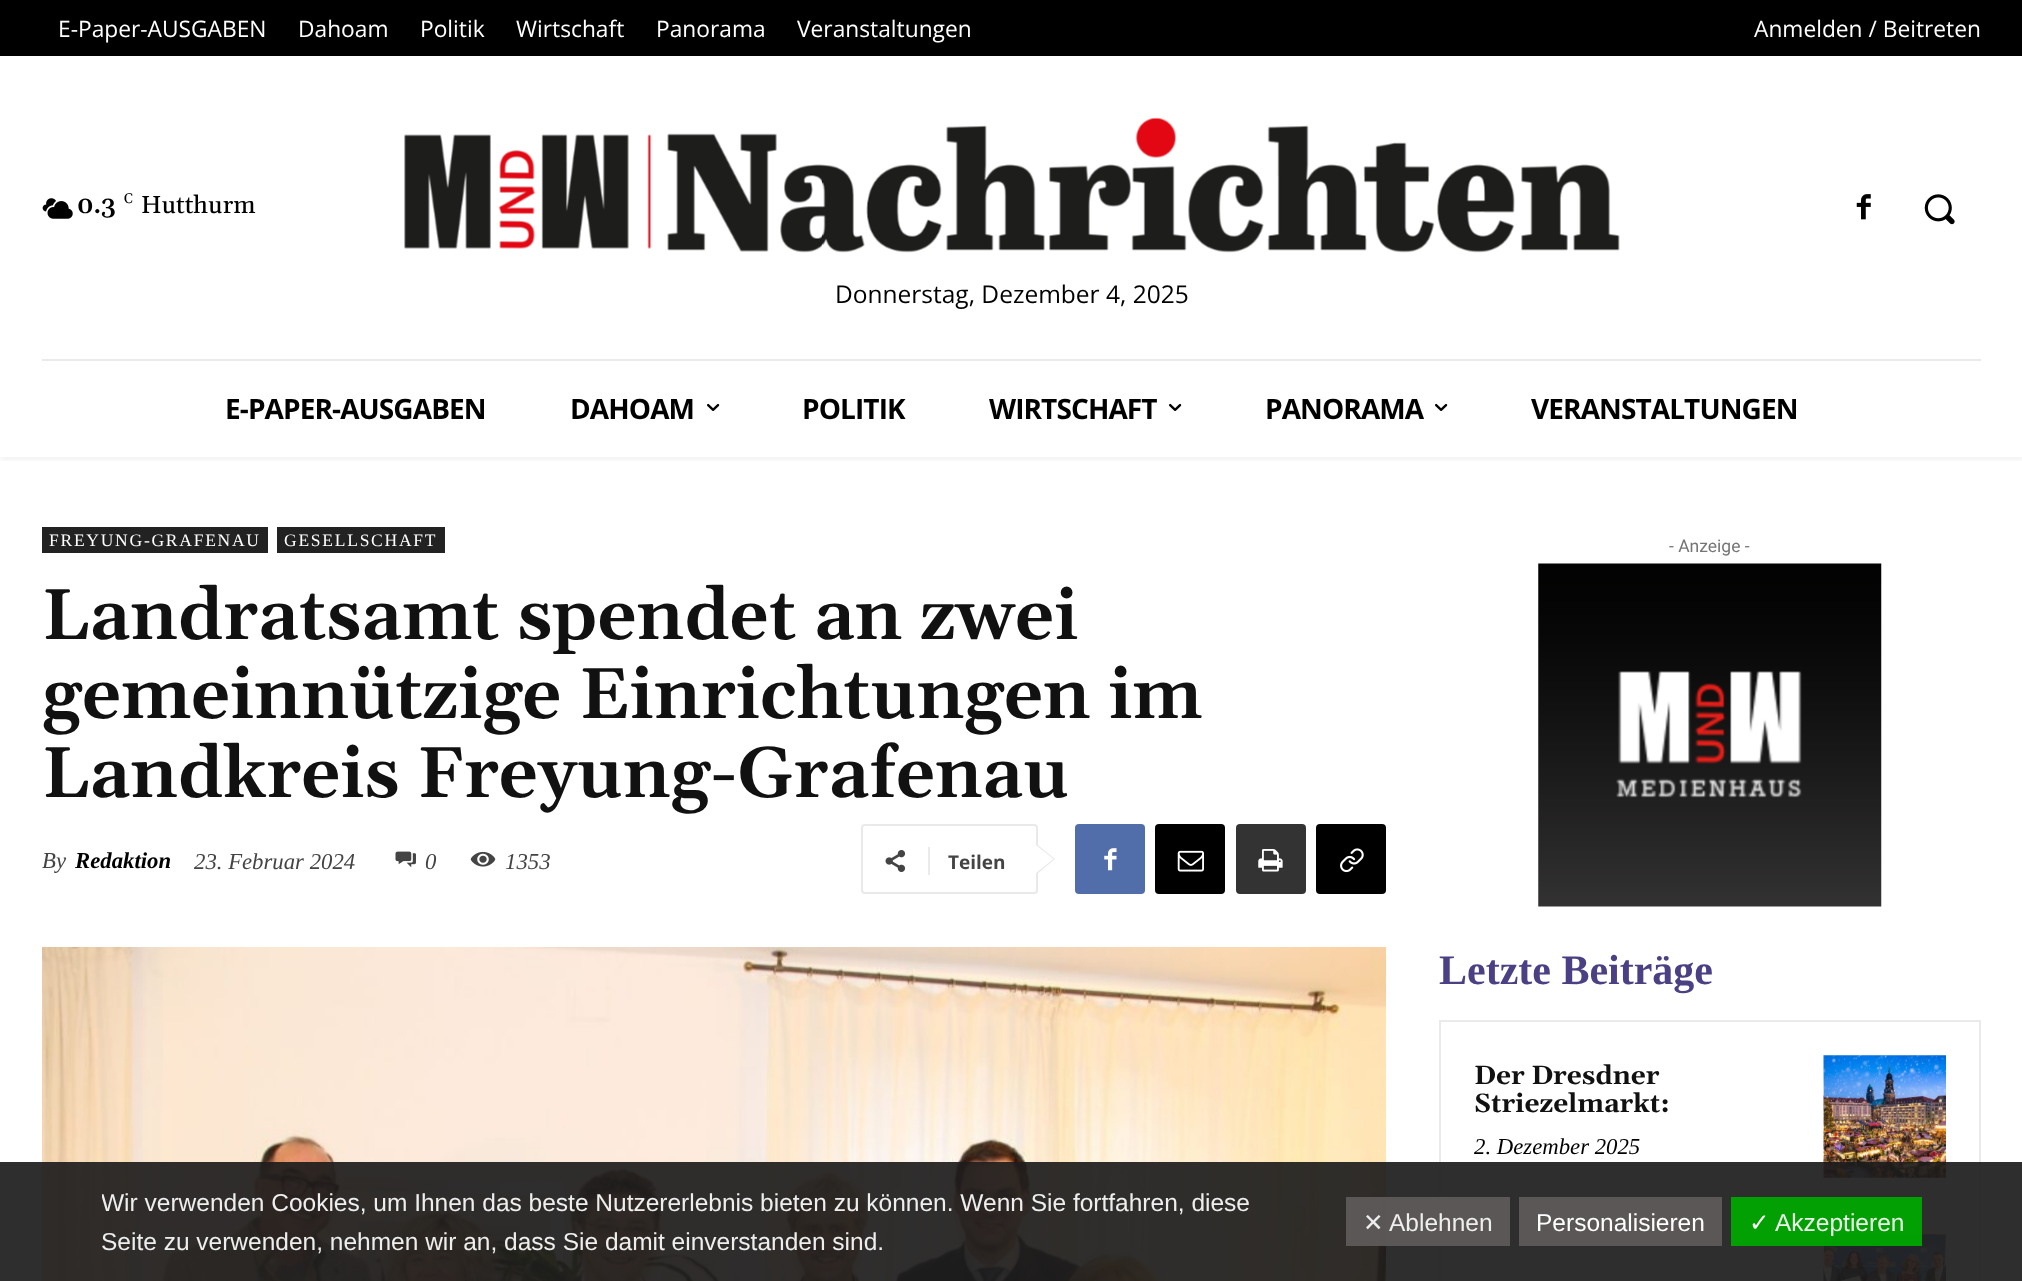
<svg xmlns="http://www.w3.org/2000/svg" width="2022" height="1281">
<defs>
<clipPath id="clip1"><rect x="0" y="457" width="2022" height="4"/></clipPath>
<clipPath id="clip2"><rect x="102" y="1171" width="1820" height="101"/></clipPath>
</defs>
<rect width="100%" height="100%" fill="#fff"/>
<rect width="2022" height="56" fill="#000"/>
<text x="58" y="37" style="font-family:Open Sans;font-size:22.75px;fill:#fff">E-Paper-AUSGABEN</text>
<text x="298" y="37" style="font-family:Open Sans;font-size:22.75px;fill:#fff">Dahoam</text>
<text x="420" y="37" style="font-family:Open Sans;font-size:22.75px;fill:#fff">Politik</text>
<text x="516" y="37" style="font-family:Open Sans;font-size:22.75px;fill:#fff">Wirtschaft</text>
<text x="656" y="37" style="font-family:Open Sans;font-size:22.75px;fill:#fff">Panorama</text>
<text x="797" y="37" style="font-family:Open Sans;font-size:22.75px;fill:#fff">Veranstaltungen</text>
<text x="1754" y="37" style="font-family:Open Sans;font-size:22.75px;fill:#fff">Anmelden / Beitreten</text>
<image x="42" y="198" width="31" height="21" href="media/1.png"/>
<text x="77" y="213" style="font-family:Gelasio;font-size:24.5px;font-weight:600;fill:#000">0.3</text>
<text x="124" y="203" style="font-family:Gelasio;font-size:14px;fill:#000">C</text>
<text x="141" y="213" style="font-family:Gelasio;font-size:24.5px;font-weight:500;fill:#000">Hutthurm</text>
<image x="1856" y="194" width="15" height="26" href="media/2.png"/>
<image x="1924" y="194" width="31" height="31" href="media/3.png"/>
<image x="404" y="117" width="1216" height="136" href="media/4.png"/>
<text x="835" y="303" style="font-family:Open Sans;font-size:24.5px;fill:#000">Donnerstag, Dezember 4, 2025</text>
<rect x="42" y="359" width="1939" height="2" fill="#eaeaea"/>
<g clip-path="url(#clip1)">
<rect y="310" width="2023" height="150" fill="#0000000f" filter="blur(3.5px)"/>
</g>
<text x="225" y="419" style="font-family:Open Sans;font-size:28px;font-weight:bold;letter-spacing:-0.9px;fill:#000">E-PAPER-AUSGABEN</text>
<text x="570" y="419" style="font-family:Open Sans;font-size:28px;font-weight:bold;letter-spacing:-0.9px;fill:#000">DAHOAM</text>
<image x="707" y="403" width="13" height="8" href="media/5.png"/>
<text x="802" y="419" style="font-family:Open Sans;font-size:28px;font-weight:bold;letter-spacing:-0.9px;fill:#000">POLITIK</text>
<text x="989" y="419" style="font-family:Open Sans;font-size:28px;font-weight:bold;letter-spacing:-0.9px;fill:#000">WIRTSCHAFT</text>
<image x="1169" y="403" width="13" height="8" href="media/5.png"/>
<text x="1265" y="419" style="font-family:Open Sans;font-size:28px;font-weight:bold;letter-spacing:-0.9px;fill:#000">PANORAMA</text>
<image x="1435" y="403" width="13" height="8" href="media/5.png"/>
<text x="1531" y="419" style="font-family:Open Sans;font-size:28px;font-weight:bold;letter-spacing:-0.9px;fill:#000">VERANSTALTUNGEN</text>
<rect x="42" y="527" width="226" height="26" fill="#222"/>
<text x="49" y="546" style="font-family:Liberation Serif;font-size:17.5px;letter-spacing:1.75px;fill:#fff">FREYUNG-GRAFENAU</text>
<rect x="277" y="527" width="168" height="26" fill="#222"/>
<text x="284" y="546" style="font-family:Liberation Serif;font-size:17.5px;letter-spacing:1.75px;fill:#fff">GESELLSCHAFT</text>
<text x="42" y="639" style="font-family:Gelasio;font-size:71.75px;font-weight:600;fill:#111">Landratsamt spendet an zwei</text>
<text x="42" y="718" style="font-family:Gelasio;font-size:71.75px;font-weight:600;fill:#111">gemeinnützige Einrichtungen im</text>
<text x="42" y="797" style="font-family:Gelasio;font-size:71.75px;font-weight:600;fill:#111">Landkreis Freyung-Grafenau</text>
<text x="42" y="868" style="font-family:Liberation Serif;font-size:22.75px;font-style:italic;fill:#444">By</text>
<text x="75" y="868" style="font-family:Liberation Serif;font-size:22.75px;font-weight:bold;font-style:italic;fill:#000">Redaktion</text>
<text x="194" y="869" style="font-family:Liberation Serif;font-size:22.75px;font-style:italic;fill:#444">23. Februar 2024</text>
<image x="395" y="851" width="21" height="17" href="media/6.png"/>
<text x="425" y="869" style="font-family:Liberation Serif;font-size:22.75px;font-style:italic;fill:#444">0</text>
<image x="470" y="851" width="26" height="16" href="media/7.png"/>
<text x="505" y="869" style="font-family:Liberation Serif;font-size:22.75px;font-style:italic;fill:#444">1353</text>
<rect x="862" y="825" width="175" height="68" rx="3" fill="none" stroke="#e9e9e9" stroke-width="2"/>
<path d="M1036 875v-31.5l19 15.5z" fill="#e9e9e9"/>
<image x="885" y="850" width="21" height="22" href="media/8.png"/>
<rect x="928" y="847" width="2" height="28" fill="#ebebeb"/>
<text x="948" y="869" style="font-family:Open Sans;font-size:19px;font-weight:bold;fill:#444">Teilen</text>
<path d="M1036 873v-28l17.5 14z" fill="#fff"/>
<rect x="1075" y="824" width="70" height="70" rx="4" fill="#516eab"/>
<image x="1104" y="848" width="13" height="23" href="media/9.png"/>
<rect x="1155" y="824" width="70" height="70" rx="4" fill="#000"/>
<image x="1177" y="850" width="27" height="22" href="media/10.png"/>
<rect x="1236" y="824" width="70" height="70" rx="4" fill="#333"/>
<image x="1258" y="849" width="25" height="23" href="media/11.png"/>
<rect x="1316" y="824" width="70" height="70" rx="4" fill="#000"/>
<image x="1340" y="848" width="24" height="25" href="media/12.png"/>
<image x="42" y="947" width="1344" height="334" href="media/13.png"/>
<text x="1669" y="552" style="font-family:Roboto;font-size:17.5px;fill:#767676">- Anzeige -</text>
<image x="1538" y="563" width="344" height="344" href="media/14.png"/>
<text x="1439" y="984" style="font-family:Liberation Serif;font-size:42px;font-weight:bold;fill:#4c4084">Letzte Beiträge</text>
<rect x="1440" y="1021" width="540" height="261" fill="none" stroke="#eaeaea" stroke-width="2"/>
<text x="1474" y="1084" style="font-family:Gelasio;font-size:26.25px;font-weight:bold;fill:#111">Der Dresdner</text>
<text x="1474" y="1112" style="font-family:Gelasio;font-size:26.25px;font-weight:bold;fill:#111">Striezelmarkt:</text>
<text x="1474" y="1154" style="font-family:Liberation Serif;font-size:22.75px;font-style:italic;fill:#000">2. Dezember 2025</text>
<image x="1823" y="1055" width="123" height="123" href="media/15.png"/>
<image x="1823" y="1230" width="123" height="51" href="media/16.png"/>
<rect y="1162" width="2022" height="119" fill="#1d1c1ceb"/>
<g clip-path="url(#clip2)">
<text x="101" y="1211" style="font-family:Liberation Sans;font-size:24.5px;fill:#eee">Wir verwenden Cookies, um Ihnen das beste Nutzererlebnis bieten zu können. Wenn Sie fortfahren, diese</text>
</g>
<text x="101" y="1250" style="font-family:Liberation Sans;font-size:24.5px;fill:#eee">Seite zu verwenden, nehmen wir an, dass Sie damit einverstanden sind.</text>
<rect x="1346" y="1197" width="164" height="49" fill="#615b5beb"/>
<text x="1363" y="1231" style="font-family:DejaVu Sans;font-size:24.5px;fill:#eee">✕</text>
<text x="1389" y="1231" style="font-family:Liberation Sans;font-size:24.5px;fill:#eee">Ablehnen</text>
<rect x="1519" y="1197" width="203" height="49" fill="#615b5beb"/>
<text x="1536" y="1231" style="font-family:Liberation Sans;font-size:24.5px;fill:#fff">Personalisieren</text>
<rect x="1731" y="1197" width="191" height="49" fill="#00aa00eb"/>
<text x="1749" y="1231" style="font-family:DejaVu Sans;font-size:24.5px;fill:#fff">✓</text>
<text x="1775" y="1231" style="font-family:Liberation Sans;font-size:24.5px;fill:#ebf8eb">Akzeptieren</text>
</svg>
